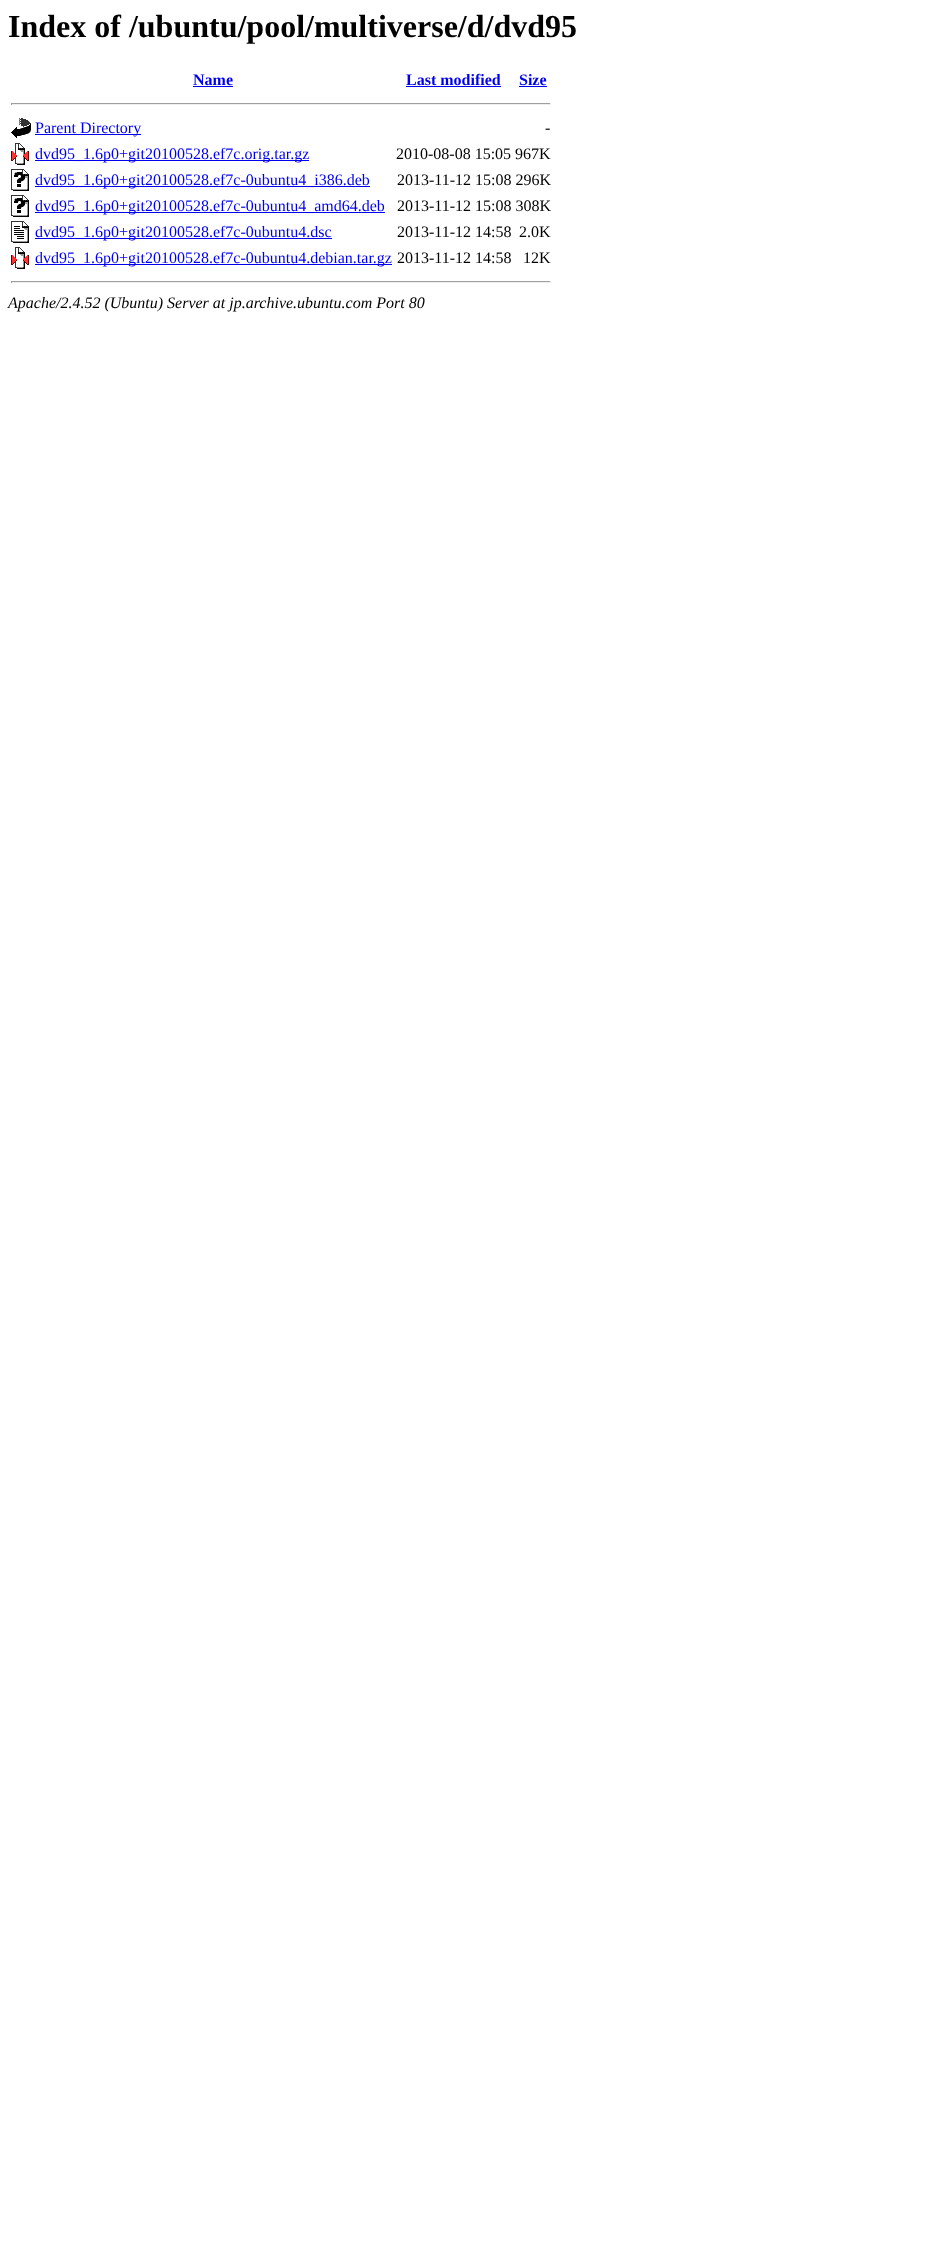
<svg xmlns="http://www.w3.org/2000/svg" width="944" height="2253">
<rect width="100%" height="100%" fill="#fff"/>
<text x="8" y="37" style="font-family:Liberation Serif;font-size:32px;font-weight:bold;fill:#000">Index of /ubuntu/pool/multiverse/d/dvd95</text>
<text x="193" y="85" style="font-family:Liberation Serif;font-size:16px;font-weight:bold;fill:#00e">Name</text>
<rect x="193" y="86" width="40" height="1" fill="#00e"/>
<text x="406" y="85" style="font-family:Liberation Serif;font-size:16px;font-weight:bold;fill:#00e">Last modified</text>
<rect x="406" y="86" width="95" height="1" fill="#00e"/>
<text x="519" y="85" style="font-family:Liberation Serif;font-size:16px;font-weight:bold;fill:#00e">Size</text>
<rect x="519" y="86" width="28" height="1" fill="#00e"/>
<rect x="11" y="103" width="540" height="1" fill="#9f9f9f"/>
<rect x="550" y="103" width="1" height="2" fill="#eee"/>
<rect x="11" y="104" width="540" height="1" fill="#eee"/>
<rect x="11" y="103" width="1" height="2" fill="#9f9f9f"/>
<image x="11" y="118" width="20" height="20" href="media/1.png"/>
<rect x="35" y="134" width="106" height="1" fill="#00e"/>
<text x="35" y="133" style="font-family:Liberation Serif;font-size:16px;fill:#00e">Parent Directory</text>
<text x="545" y="133" style="font-family:Liberation Serif;font-size:16px;fill:#000">-</text>
<image x="11" y="143" width="18" height="22" href="media/2.png"/>
<rect x="35" y="160" width="274" height="1" fill="#00e"/>
<text x="35" y="159" style="font-family:Liberation Serif;font-size:16px;fill:#00e">dvd95_1.6p0+git20100528.ef7c.orig.tar.gz</text>
<text x="396" y="159" style="font-family:Liberation Serif;font-size:16px;fill:#000">2010-08-08 15:05 967K</text>
<image x="11" y="169" width="18" height="22" href="media/3.png"/>
<rect x="35" y="186" width="335" height="1" fill="#00e"/>
<text x="35" y="185" style="font-family:Liberation Serif;font-size:16px;fill:#00e">dvd95_1.6p0+git20100528.ef7c-0ubuntu4_i386.deb</text>
<text x="397" y="185" style="font-family:Liberation Serif;font-size:16px;fill:#000">2013-11-12 15:08 296K</text>
<image x="11" y="195" width="18" height="22" href="media/3.png"/>
<rect x="35" y="212" width="350" height="1" fill="#00e"/>
<text x="35" y="211" style="font-family:Liberation Serif;font-size:16px;fill:#00e">dvd95_1.6p0+git20100528.ef7c-0ubuntu4_amd64.deb</text>
<text x="397" y="211" style="font-family:Liberation Serif;font-size:16px;fill:#000">2013-11-12 15:08 308K</text>
<image x="11" y="221" width="18" height="22" href="media/4.png"/>
<rect x="35" y="238" width="297" height="1" fill="#00e"/>
<text x="35" y="237" style="font-family:Liberation Serif;font-size:16px;fill:#00e">dvd95_1.6p0+git20100528.ef7c-0ubuntu4.dsc</text>
<text x="397" y="237" style="font-family:Liberation Serif;font-size:16px;fill:#000">2013-11-12 14:58</text>
<text x="519" y="237" style="font-family:Liberation Serif;font-size:16px;fill:#000">2.0K</text>
<image x="11" y="247" width="18" height="22" href="media/2.png"/>
<rect x="35" y="264" width="357" height="1" fill="#00e"/>
<text x="35" y="263" style="font-family:Liberation Serif;font-size:16px;fill:#00e">dvd95_1.6p0+git20100528.ef7c-0ubuntu4.debian.tar.gz</text>
<text x="397" y="263" style="font-family:Liberation Serif;font-size:16px;fill:#000">2013-11-12 14:58</text>
<text x="523" y="263" style="font-family:Liberation Serif;font-size:16px;fill:#000">12K</text>
<rect x="11" y="281" width="540" height="1" fill="#9f9f9f"/>
<rect x="550" y="281" width="1" height="2" fill="#eee"/>
<rect x="11" y="282" width="540" height="1" fill="#eee"/>
<rect x="11" y="281" width="1" height="2" fill="#9f9f9f"/>
<text x="8" y="308" style="font-family:Liberation Serif;font-size:16px;font-style:italic;fill:#000">Apache/2.4.52 (Ubuntu) Server at jp.archive.ubuntu.com Port 80</text>
</svg>
